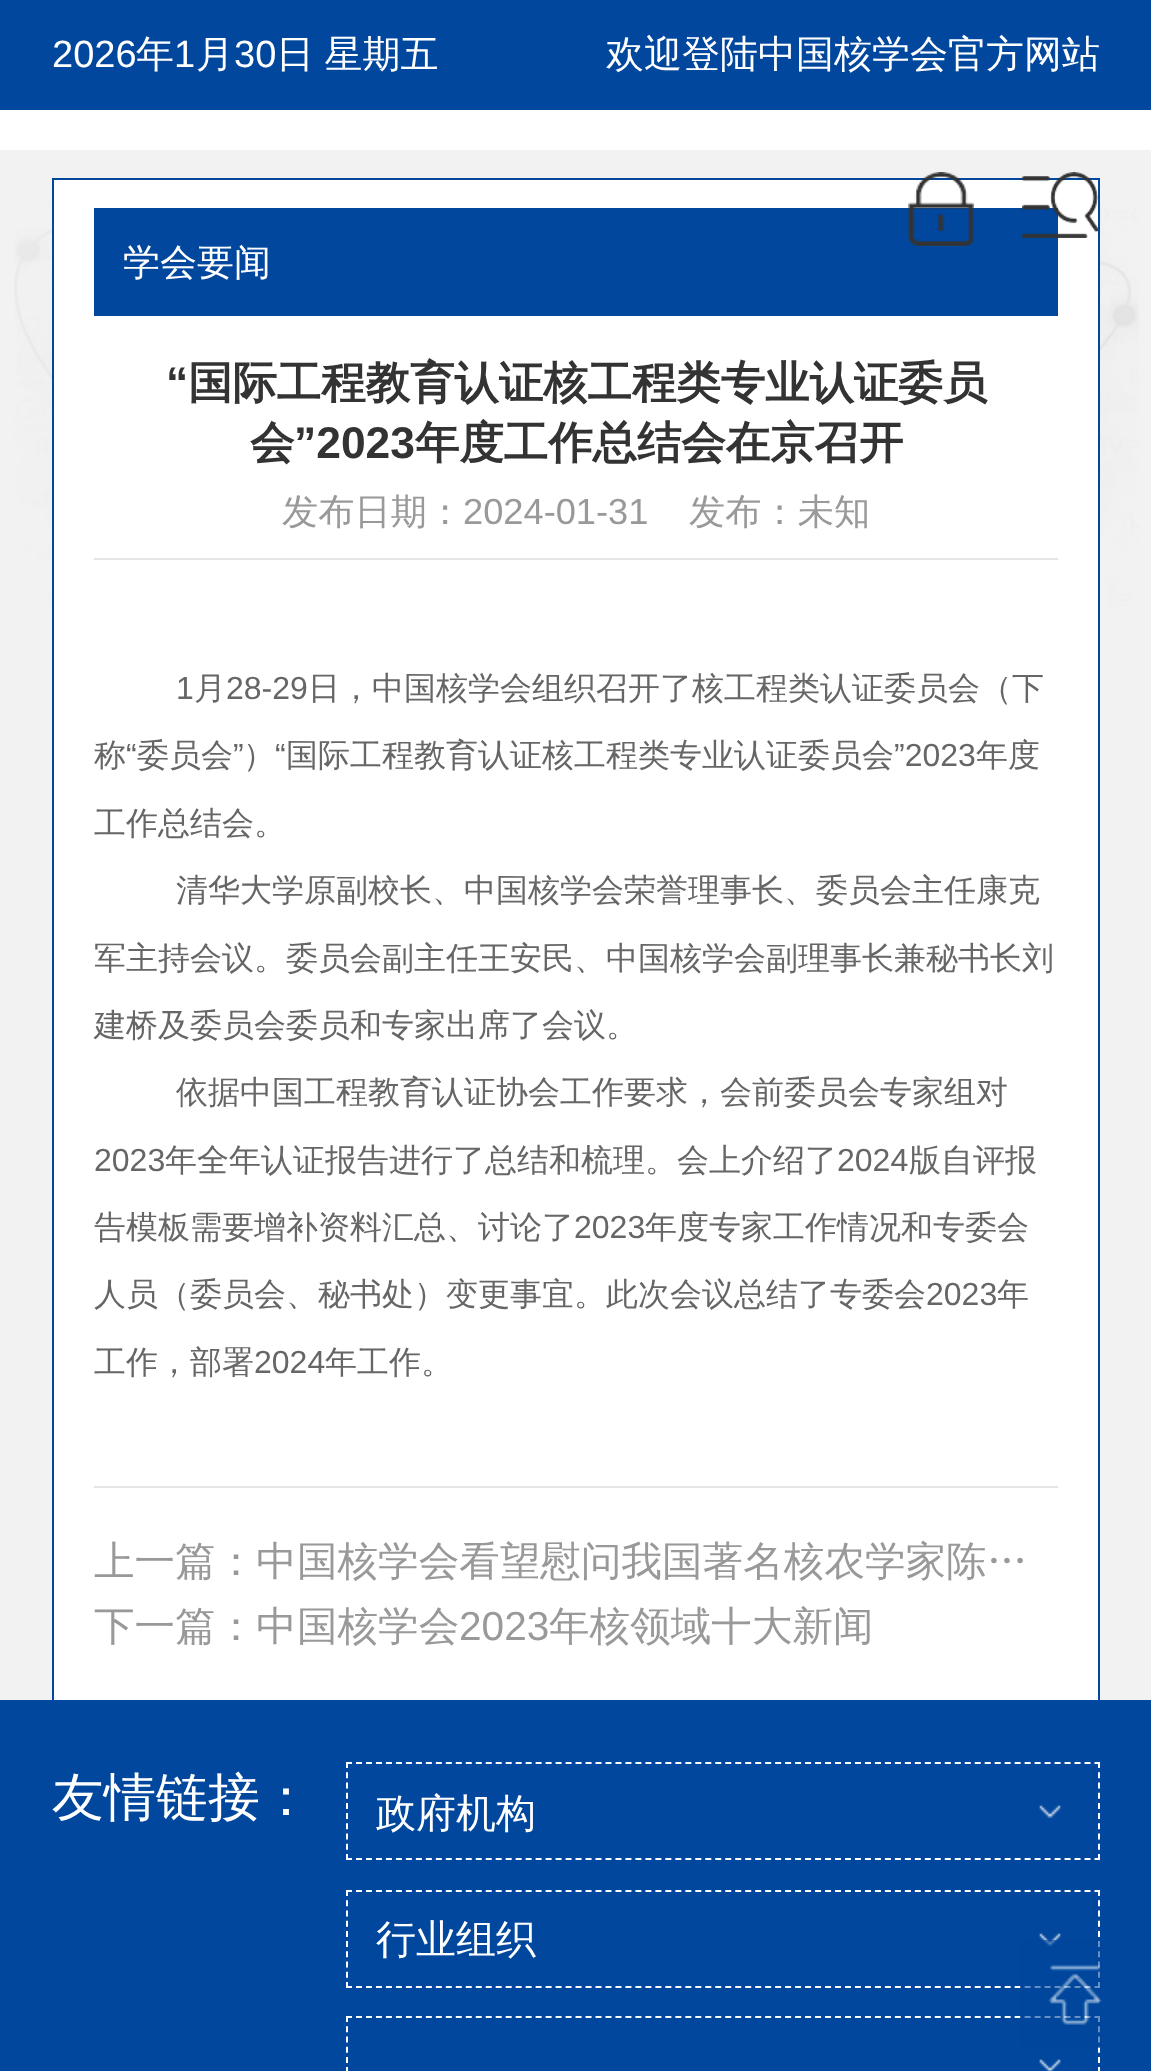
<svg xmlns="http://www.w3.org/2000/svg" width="1151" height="2071">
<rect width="100%" height="100%" fill="#fff"/>
<rect width="1151" height="110" fill="#01479d"/>
<text x="52" y="67" style="font-family:Liberation Sans;font-size:38px;fill:#fff">2026</text>
<text x="136" y="67" style="font-family:WenQuanYi Zen Hei;font-size:38px;font-weight:500;fill:#fff">年</text>
<text x="174" y="67" style="font-family:Liberation Sans;font-size:38px;fill:#fff">1</text>
<text x="196" y="67" style="font-family:WenQuanYi Zen Hei;font-size:38px;font-weight:500;fill:#fff">月</text>
<text x="234" y="67" style="font-family:Liberation Sans;font-size:38px;fill:#fff">30</text>
<text x="276" y="67" word-spacing="-1" style="font-family:WenQuanYi Zen Hei;font-size:38px;font-weight:500;fill:#fff">日 星期五</text>
<text x="606" y="67" style="font-family:WenQuanYi Zen Hei;font-size:38px;font-weight:500;fill:#fff">欢迎登陆中国核学会官方网站</text>
<rect y="150" width="1151" height="1550" fill="#f2f2f2"/>
<image x="14" y="202" width="1125" height="405" href="media/3.png"/>
<rect x="54" y="180" width="1044" height="1520" fill="#fff"/>
<rect x="52" y="178" width="1048" height="2" fill="#01479d"/>
<rect x="94" y="208" width="964" height="108" fill="#01479d"/>
<image x="908" y="172" width="66" height="74" href="media/1.png"/>
<image x="1022" y="172" width="76" height="66" href="media/2.png"/>
<rect x="1098" y="178" width="2" height="1522" fill="#01479d"/>
<rect x="52" y="178" width="2" height="1522" fill="#01479d"/>
<text x="123" y="275" style="font-family:WenQuanYi Zen Hei;font-size:37px;font-weight:500;fill:#fff">学会要闻</text>
<rect x="94" y="558" width="964" height="2" fill="#e5e5e5"/>
<text x="166" y="398" style="font-family:Liberation Sans;font-size:44.4px;font-weight:bold;fill:#333">“</text>
<text x="188" y="398" style="font-family:WenQuanYi Zen Hei;font-size:44.4px;font-weight:bold;fill:#333">国际工程教育认证核工程类专业认证委员</text>
<text x="250" y="458" style="font-family:WenQuanYi Zen Hei;font-size:44.4px;font-weight:bold;fill:#333">会</text>
<text x="294" y="458" style="font-family:Liberation Sans;font-size:44.4px;font-weight:bold;fill:#333">”2023</text>
<text x="415" y="458" style="font-family:WenQuanYi Zen Hei;font-size:44.4px;font-weight:bold;fill:#333">年度工作总结会在京召开</text>
<text x="282" y="524" style="font-family:WenQuanYi Zen Hei;font-size:36.25px;font-weight:500;fill:#999">发布日期：</text>
<text x="463" y="524" style="font-family:Liberation Sans;font-size:36.25px;fill:#999">2024-01-31</text>
<text x="689" y="524" style="font-family:WenQuanYi Zen Hei;font-size:36.25px;font-weight:500;fill:#999">发布：未知</text>
<text x="176" y="699" style="font-family:Liberation Sans;font-size:32px;fill:#666">1</text>
<text x="194" y="699" style="font-family:WenQuanYi Zen Hei;font-size:32px;font-weight:500;fill:#666">月</text>
<text x="226" y="699" style="font-family:Liberation Sans;font-size:32px;fill:#666">28-29</text>
<text x="308" y="699" style="font-family:WenQuanYi Zen Hei;font-size:32px;font-weight:500;fill:#666">日，中国核学会组织召开了核工程类认证委员会（下</text>
<text x="94" y="766" style="font-family:WenQuanYi Zen Hei;font-size:32px;font-weight:500;fill:#666">称</text>
<text x="126" y="766" style="font-family:Liberation Sans;font-size:32px;fill:#666">“</text>
<text x="137" y="766" style="font-family:WenQuanYi Zen Hei;font-size:32px;font-weight:500;fill:#666">委员会</text>
<text x="233" y="766" style="font-family:Liberation Sans;font-size:32px;fill:#666">”</text>
<text x="243" y="766" style="font-family:WenQuanYi Zen Hei;font-size:32px;font-weight:500;fill:#666">）</text>
<text x="275" y="766" style="font-family:Liberation Sans;font-size:32px;fill:#666">“</text>
<text x="286" y="766" style="font-family:WenQuanYi Zen Hei;font-size:32px;font-weight:500;fill:#666">国际工程教育认证核工程类专业认证委员会</text>
<text x="894" y="766" style="font-family:Liberation Sans;font-size:32px;fill:#666">”2023</text>
<text x="976" y="766" style="font-family:WenQuanYi Zen Hei;font-size:32px;font-weight:500;fill:#666">年度</text>
<text x="94" y="834" style="font-family:WenQuanYi Zen Hei;font-size:32px;font-weight:500;fill:#666">工作总结会。</text>
<text x="176" y="901" style="font-family:WenQuanYi Zen Hei;font-size:32px;font-weight:500;fill:#666">清华大学原副校长、中国核学会荣誉理事长、委员会主任康克</text>
<text x="94" y="969" style="font-family:WenQuanYi Zen Hei;font-size:32px;font-weight:500;fill:#666">军主持会议。委员会副主任王安民、中国核学会副理事长兼秘书长刘</text>
<text x="94" y="1036" style="font-family:WenQuanYi Zen Hei;font-size:32px;font-weight:500;fill:#666">建桥及委员会委员和专家出席了会议。</text>
<text x="176" y="1103" style="font-family:WenQuanYi Zen Hei;font-size:32px;font-weight:500;fill:#666">依据中国工程教育认证协会工作要求，会前委员会专家组对</text>
<text x="94" y="1171" style="font-family:Liberation Sans;font-size:32px;fill:#666">2023</text>
<text x="165" y="1171" style="font-family:WenQuanYi Zen Hei;font-size:32px;font-weight:500;fill:#666">年全年认证报告进行了总结和梳理。会上介绍了</text>
<text x="837" y="1171" style="font-family:Liberation Sans;font-size:32px;fill:#666">2024</text>
<text x="909" y="1171" style="font-family:WenQuanYi Zen Hei;font-size:32px;font-weight:500;fill:#666">版自评报</text>
<text x="94" y="1238" style="font-family:WenQuanYi Zen Hei;font-size:32px;font-weight:500;fill:#666">告模板需要增补资料汇总、讨论了</text>
<text x="574" y="1238" style="font-family:Liberation Sans;font-size:32px;fill:#666">2023</text>
<text x="645" y="1238" style="font-family:WenQuanYi Zen Hei;font-size:32px;font-weight:500;fill:#666">年度专家工作情况和专委会</text>
<text x="94" y="1305" style="font-family:WenQuanYi Zen Hei;font-size:32px;font-weight:500;fill:#666">人员（委员会、秘书处）变更事宜。此次会议总结了专委会</text>
<text x="926" y="1305" style="font-family:Liberation Sans;font-size:32px;fill:#666">2023</text>
<text x="997" y="1305" style="font-family:WenQuanYi Zen Hei;font-size:32px;font-weight:500;fill:#666">年</text>
<text x="94" y="1373" style="font-family:WenQuanYi Zen Hei;font-size:32px;font-weight:500;fill:#666">工作，部署</text>
<text x="254" y="1373" style="font-family:Liberation Sans;font-size:32px;fill:#666">2024</text>
<text x="325" y="1373" style="font-family:WenQuanYi Zen Hei;font-size:32px;font-weight:500;fill:#666">年工作。</text>
<rect x="94" y="1486" width="964" height="2" fill="#e5e5e5"/>
<text x="94" y="1575" style="font-family:WenQuanYi Zen Hei;font-size:40.6px;font-weight:500;fill:#999">上一篇：中国核学会看望慰问我国著名核农学家陈…</text>
<text x="94" y="1640" style="font-family:WenQuanYi Zen Hei;font-size:40.6px;font-weight:500;fill:#999">下一篇：中国核学会</text>
<text x="459" y="1640" style="font-family:Liberation Sans;font-size:40.6px;fill:#999">2023</text>
<text x="549" y="1640" style="font-family:WenQuanYi Zen Hei;font-size:40.6px;font-weight:500;fill:#999">年核领域十大新闻</text>
<rect y="1700" width="1151" height="371" fill="#01479d"/>
<text x="52" y="1815" style="font-family:WenQuanYi Zen Hei;font-size:52px;font-weight:500;fill:#fff">友情链接：</text>
<image x="1039" y="1805" width="22" height="13" href="media/4.png"/>
<path d="M346 1763h754" fill="none" stroke="#fff" stroke-width="2" stroke-dasharray="6 3.98"/>
<path d="M1099 1762v98" fill="none" stroke="#fff" stroke-width="2" stroke-dasharray="6 4.22"/>
<path d="M346 1859h754" fill="none" stroke="#fff" stroke-width="2" stroke-dasharray="6 3.98"/>
<path d="M347 1762v98" fill="none" stroke="#fff" stroke-width="2" stroke-dasharray="6 4.22"/>
<text x="376" y="1827" style="font-family:WenQuanYi Zen Hei;font-size:40px;font-weight:500;fill:#fff">政府机构</text>
<image x="1039" y="1933" width="22" height="13" href="media/4.png"/>
<path d="M346 1891h754" fill="none" stroke="#fff" stroke-width="2" stroke-dasharray="6 3.98"/>
<path d="M1099 1890v98" fill="none" stroke="#fff" stroke-width="2" stroke-dasharray="6 4.22"/>
<path d="M346 1987h754" fill="none" stroke="#fff" stroke-width="2" stroke-dasharray="6 3.98"/>
<path d="M347 1890v98" fill="none" stroke="#fff" stroke-width="2" stroke-dasharray="6 4.22"/>
<text x="376" y="1953" style="font-family:WenQuanYi Zen Hei;font-size:40px;font-weight:500;fill:#fff">行业组织</text>
<image x="1039" y="2059" width="22" height="12" href="media/5.png"/>
<path d="M346 2017h754" fill="none" stroke="#fff" stroke-width="2" stroke-dasharray="6 3.98"/>
<path d="M1099 2016v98" fill="none" stroke="#fff" stroke-width="2" stroke-dasharray="6 4.22"/>
<path d="M347 2016v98" fill="none" stroke="#fff" stroke-width="2" stroke-dasharray="6 4.22"/>
<image x="1020" y="1940" width="82" height="108" href="media/6.png"/>
</svg>
